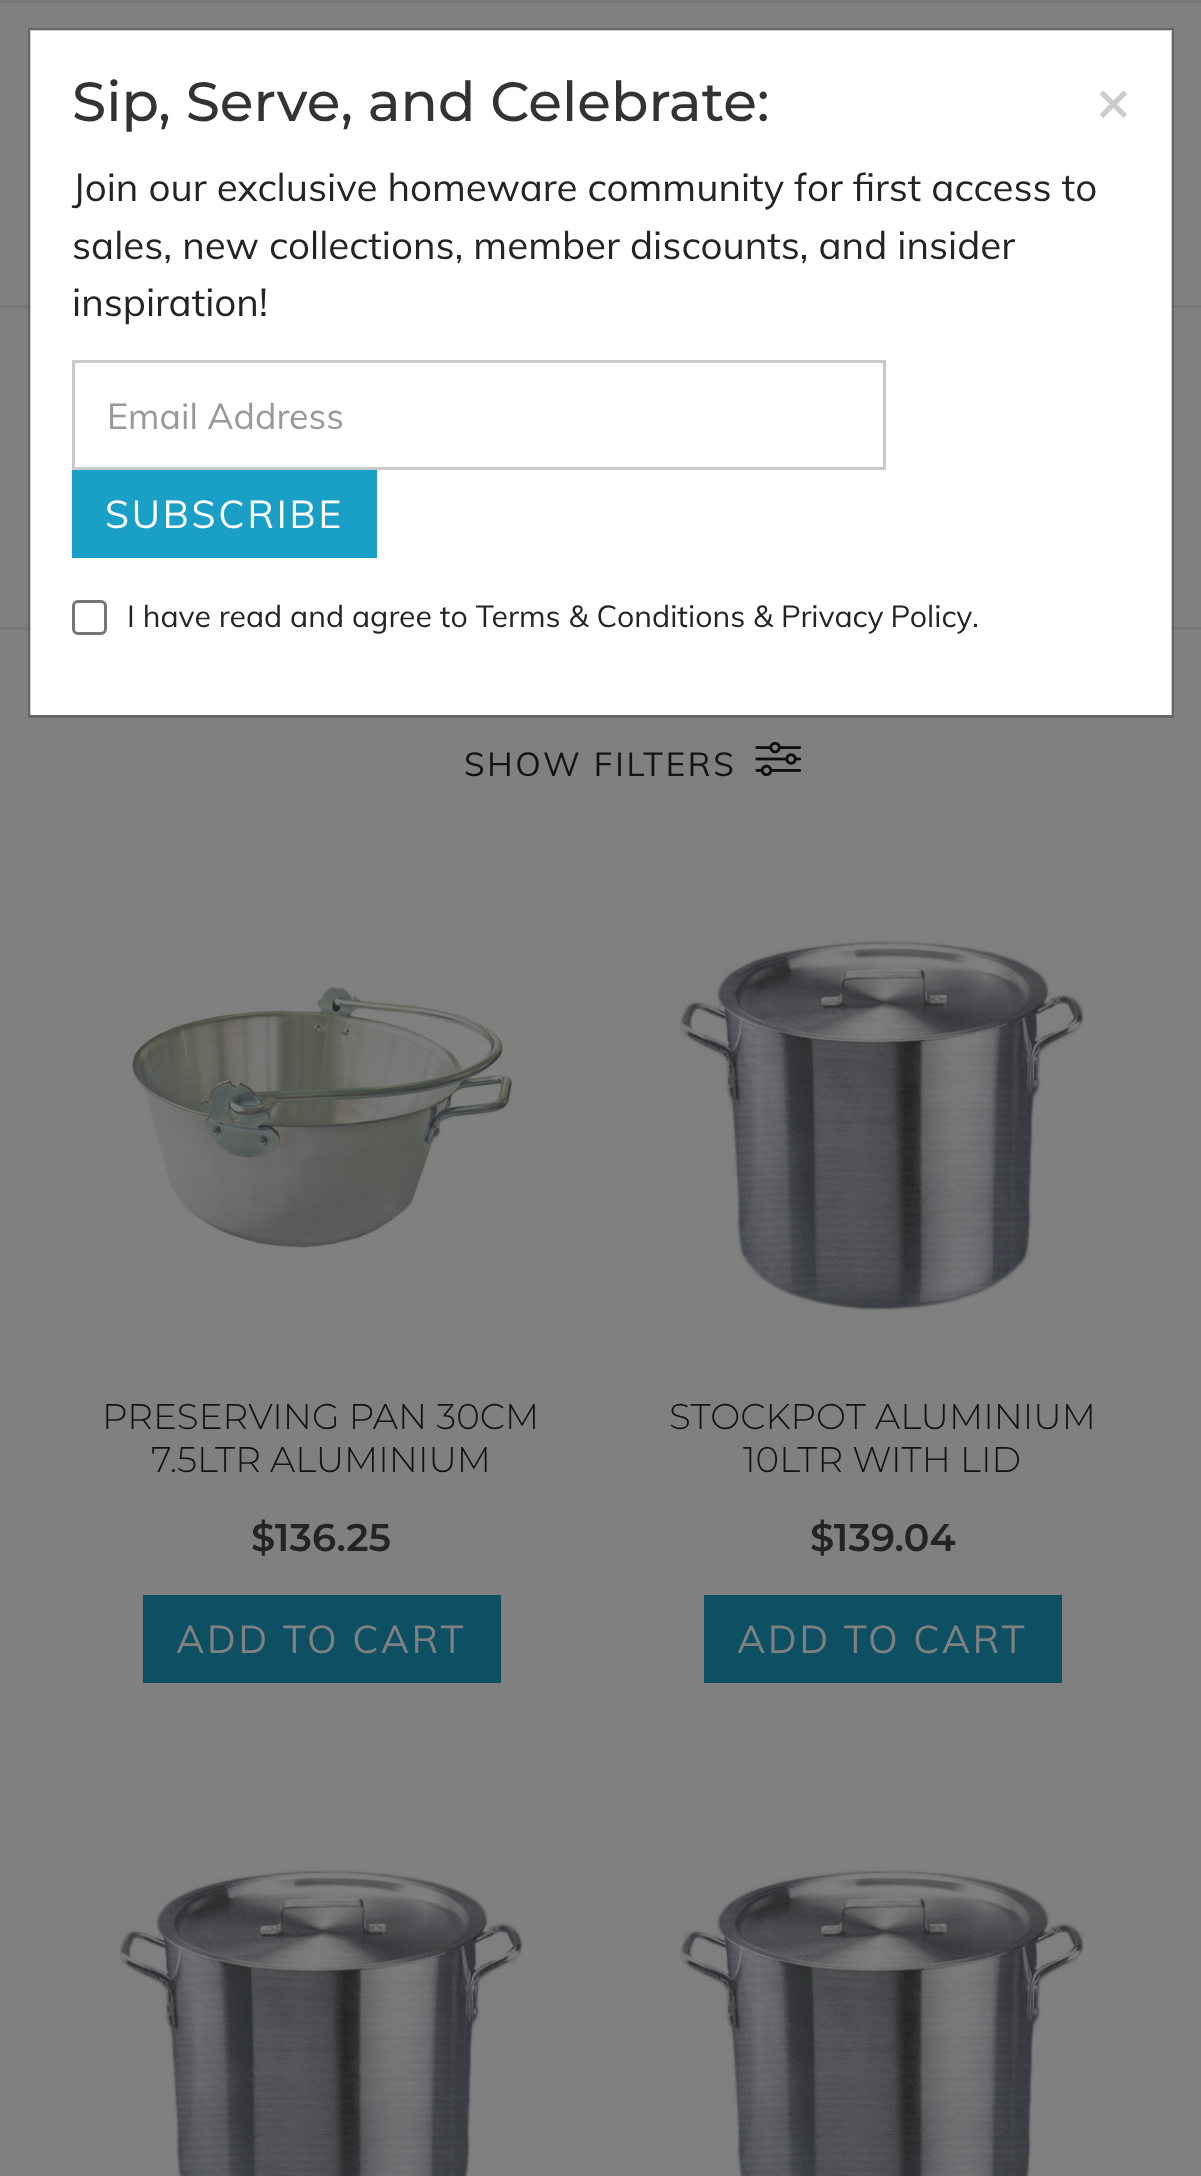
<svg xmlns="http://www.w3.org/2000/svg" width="1201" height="2176">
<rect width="100%" height="100%" fill="#808080"/>
<rect width="1201" height="3" fill="#777"/>
<rect y="305" width="1201" height="3" fill="#777"/>
<rect y="627" width="1201" height="3" fill="#777"/>
<rect x="30" y="30" width="1142" height="685" fill="#fff"/>
<rect x="29.5" y="29.5" width="1143" height="687" fill="none" stroke="#00000033" stroke-width="3"/>
<text x="72" y="121" style="font-family:Montserrat;font-size:55px;font-weight:500;fill:#333">Sip, Serve, and Celebrate:</text>
<text x="1096" y="121" style="font-family:Muli;font-size:58px;font-weight:bold;fill:#ccc">×</text>
<text x="72" y="201" style="font-family:Muli;font-size:38.5px;fill:#242424">Join our exclusive homeware community for first access to</text>
<text x="72" y="259" style="font-family:Muli;font-size:38.5px;fill:#242424">sales, new collections, member discounts, and insider</text>
<text x="72" y="316" style="font-family:Muli;font-size:38.5px;fill:#242424">inspiration!</text>
<rect x="73.5" y="361.5" width="811" height="107" fill="none" stroke="#cacaca" stroke-width="3"/>
<text x="107" y="429" style="font-family:Muli;font-size:35.75px;fill:#999">Email Address</text>
<rect x="72" y="470" width="305" height="88" fill="#1a9fc7"/>
<text x="105" y="528" style="font-family:Muli;font-size:38.5px;letter-spacing:2.75px;fill:#fff">SUBSCRIBE</text>
<rect x="73.5" y="601.5" width="32" height="32" rx="4.5" fill="none" stroke="#767676" stroke-width="3"/>
<text x="127" y="627" style="font-family:Muli;font-size:30.25px;fill:#242424">I have read and agree to Terms &amp; Conditions &amp;</text>
<text x="781" y="627" word-spacing="-1" style="font-family:Muli;font-size:30.25px;fill:#242424">Privacy Policy</text>
<text x="972" y="627" style="font-family:Muli;font-size:30.25px;fill:#242424">.</text>
<text x="464" y="776" style="font-family:Muli;font-size:33px;letter-spacing:2.75px;fill:#131313">SHOW FILTERS</text>
<image x="755" y="741" width="47" height="36" href="media/1.png"/>
<image x="131" y="986" width="382" height="262" href="media/2.png"/>
<text x="102" y="1429" style="font-family:Montserrat;font-size:35.75px;font-weight:300;fill:#131313">PRESERVING PAN 30CM</text>
<text x="151" y="1472" style="font-family:Montserrat;font-size:35.75px;font-weight:300;fill:#131313">7.5LTR ALUMINIUM</text>
<text x="251" y="1551" style="font-family:Montserrat;font-size:38.5px;font-weight:600;fill:#242424">$136.25</text>
<rect x="143" y="1595" width="358" height="88" fill="#0d5064"/>
<text x="176" y="1653" style="font-family:Muli;font-size:38.5px;letter-spacing:2.75px;fill:#808080">ADD TO CART</text>
<image x="680" y="940" width="404" height="371" href="media/3.png"/>
<text x="669" y="1429" style="font-family:Montserrat;font-size:35.75px;font-weight:300;fill:#131313">STOCKPOT ALUMINIUM</text>
<text x="743" y="1472" style="font-family:Montserrat;font-size:35.75px;font-weight:300;fill:#131313">10LTR WITH LID</text>
<text x="810" y="1551" style="font-family:Montserrat;font-size:38.5px;font-weight:600;fill:#242424">$139.04</text>
<rect x="704" y="1595" width="358" height="88" fill="#0d5064"/>
<text x="737" y="1653" style="font-family:Muli;font-size:38.5px;letter-spacing:2.75px;fill:#808080">ADD TO CART</text>
<image x="119" y="1868" width="404" height="308" href="media/4.png"/>
<image x="680" y="1868" width="404" height="308" href="media/4.png"/>
</svg>
